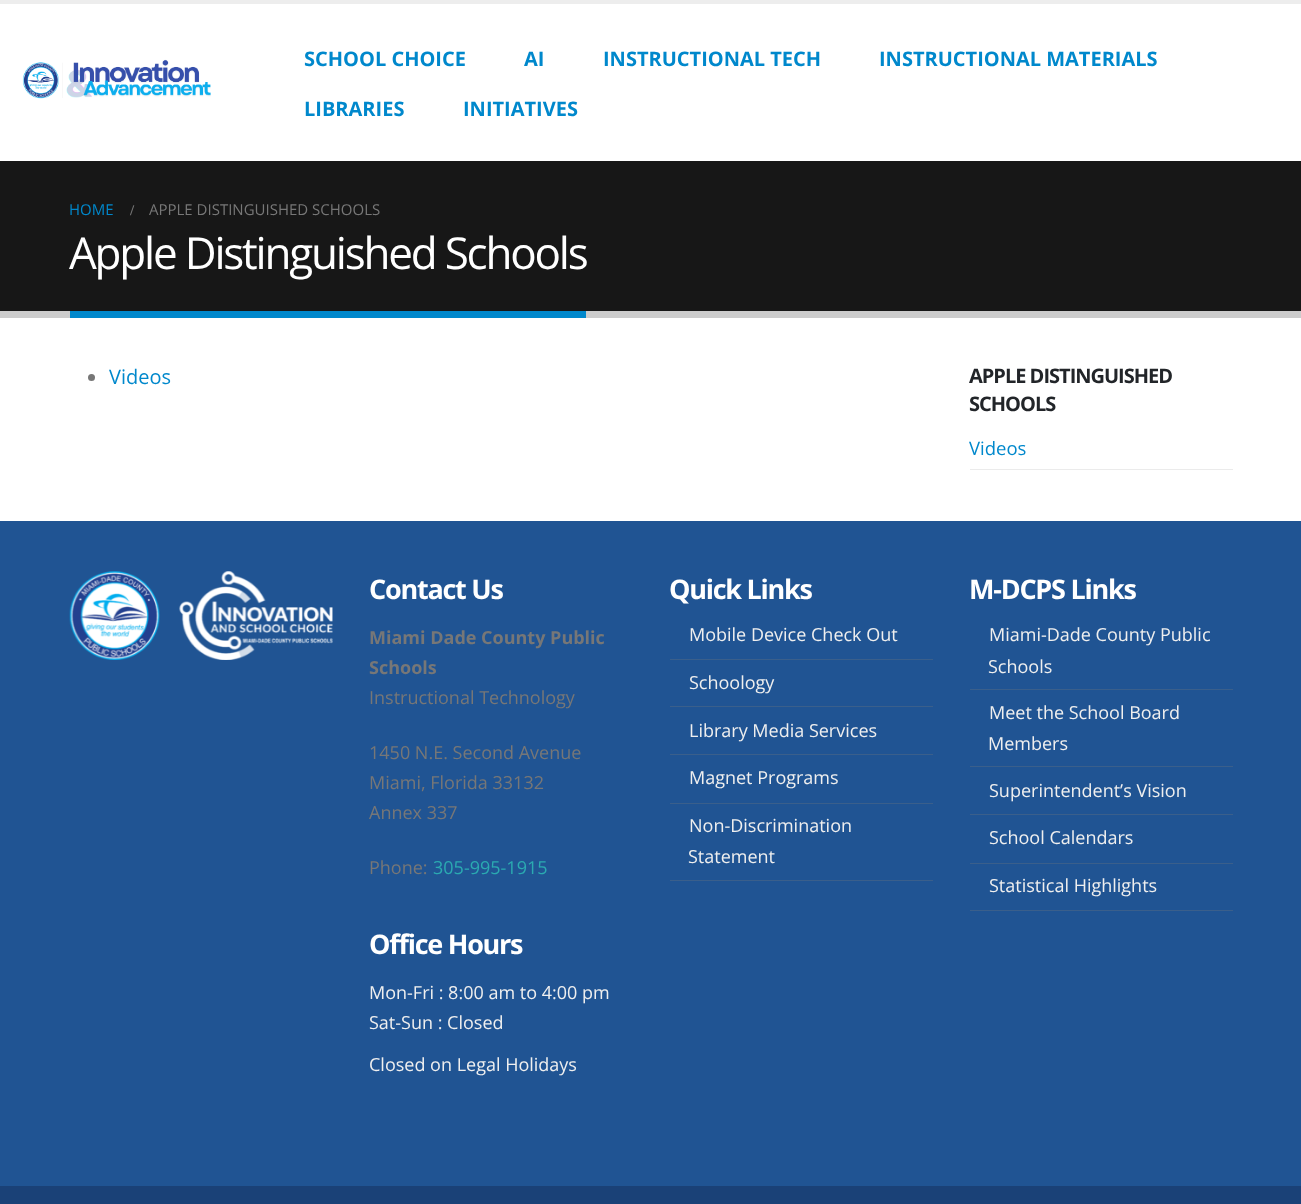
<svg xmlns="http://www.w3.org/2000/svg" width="1301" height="1204">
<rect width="100%" height="100%" fill="#fff"/>
<rect width="1301" height="4" fill="#ededed"/>
<image x="22" y="59" width="189" height="40" href="media/1.png"/>
<text x="304" y="66" style="font-family:Open Sans;font-size:20px;font-weight:bold;fill:#08c">SCHOOL CHOICE</text>
<text x="524" y="66" style="font-family:Open Sans;font-size:20px;font-weight:bold;fill:#08c">AI</text>
<text x="603" y="66" style="font-family:Open Sans;font-size:20px;font-weight:bold;fill:#08c">INSTRUCTIONAL TECH</text>
<text x="879" y="66" style="font-family:Open Sans;font-size:20px;font-weight:bold;fill:#08c">INSTRUCTIONAL MATERIALS</text>
<text x="304" y="116" style="font-family:Open Sans;font-size:20px;font-weight:bold;fill:#08c">LIBRARIES</text>
<text x="463" y="116" style="font-family:Open Sans;font-size:20px;font-weight:bold;fill:#08c">INITIATIVES</text>
<rect y="161" width="1301" height="150" fill="#171717"/>
<rect y="311" width="1301" height="7" fill="#ccc"/>
<text x="69" y="215" style="font-family:Open Sans;font-size:15px;fill:#08c">HOME</text>
<text x="130" y="215" style="font-family:Liberation Serif;font-size:15px;font-weight:bold;fill:#777">/</text>
<text x="149" y="215" style="font-family:Open Sans;font-size:15px;fill:#777">APPLE DISTINGUISHED SCHOOLS</text>
<text x="69" y="269" style="font-family:Open Sans;font-size:44px;letter-spacing:-2.2px;fill:#fff">Apple Distinguished Schools</text>
<rect x="70" y="311" width="516" height="7" fill="#08c"/>
<circle cx="91.5" cy="377.5" r="3.5" fill="#777"/>
<text x="109" y="384" style="font-family:Open Sans;font-size:20px;fill:#08c">Videos</text>
<text x="969" y="383" style="font-family:Open Sans;font-size:20px;font-weight:bold;letter-spacing:-1px;fill:#222529">APPLE DISTINGUISHED</text>
<text x="969" y="411" style="font-family:Open Sans;font-size:20px;font-weight:bold;letter-spacing:-1px;fill:#222529">SCHOOLS</text>
<rect x="970" y="469" width="263" height="1" fill="#ebebeb"/>
<text x="969" y="455" style="font-family:Open Sans;font-size:18.5px;fill:#08c">Videos</text>
<rect y="521" width="1301" height="665" fill="#205493"/>
<image x="69" y="571" width="264" height="89" href="media/2.png"/>
<text x="369" y="599" style="font-family:Open Sans;font-size:27px;font-weight:bold;letter-spacing:-1.25px;fill:#fff">Contact Us</text>
<text x="369" y="644" style="font-family:Open Sans;font-size:18px;font-weight:bold;fill:#777">Miami Dade County Public</text>
<text x="369" y="674" style="font-family:Open Sans;font-size:18px;font-weight:bold;fill:#777">Schools</text>
<text x="369" y="704" style="font-family:Open Sans;font-size:18px;fill:#777">Instructional Technology</text>
<text x="369" y="759" style="font-family:Open Sans;font-size:18px;fill:#777">1450 N.E. Second Avenue</text>
<text x="369" y="789" style="font-family:Open Sans;font-size:18px;fill:#777">Miami, Florida 33132</text>
<text x="369" y="819" style="font-family:Open Sans;font-size:18px;fill:#777">Annex 337</text>
<text x="369" y="874" style="font-family:Open Sans;font-size:18px;fill:#777">Phone:</text>
<text x="433" y="874" style="font-family:Open Sans;font-size:18px;fill:#2baab1">305-995-1915</text>
<text x="369" y="954" style="font-family:Open Sans;font-size:27px;font-weight:bold;letter-spacing:-1.25px;fill:#fff">Office Hours</text>
<text x="369" y="999" style="font-family:Open Sans;font-size:18px;fill:#efefef">Mon-Fri : 8:00 am to 4:00 pm</text>
<text x="369" y="1029" style="font-family:Open Sans;font-size:18px;fill:#efefef">Sat-Sun : Closed</text>
<text x="369" y="1071" style="font-family:Open Sans;font-size:18px;fill:#efefef">Closed on Legal Holidays</text>
<text x="669" y="599" style="font-family:Open Sans;font-size:27px;font-weight:bold;letter-spacing:-1.25px;fill:#fff">Quick Links</text>
<rect x="670" y="880" width="263" height="1" fill="#3a5f8b"/>
<text x="689" y="641" style="font-family:Open Sans;font-size:18px;fill:#efefef">Mobile Device Check Out</text>
<rect x="670" y="659" width="263" height="1" fill="#3a5f8b"/>
<text x="689" y="689" style="font-family:Open Sans;font-size:18px;fill:#efefef">Schoology</text>
<rect x="670" y="706" width="263" height="1" fill="#3a5f8b"/>
<text x="689" y="737" style="font-family:Open Sans;font-size:18px;fill:#efefef">Library Media Services</text>
<rect x="670" y="754" width="263" height="1" fill="#3a5f8b"/>
<text x="689" y="784" style="font-family:Open Sans;font-size:18px;fill:#efefef">Magnet Programs</text>
<rect x="670" y="803" width="263" height="1" fill="#3a5f8b"/>
<text x="689" y="832" style="font-family:Open Sans;font-size:18px;fill:#efefef">Non-Discrimination</text>
<text x="688" y="863" style="font-family:Open Sans;font-size:18px;fill:#efefef">Statement</text>
<text x="969" y="599" style="font-family:Open Sans;font-size:27px;font-weight:bold;letter-spacing:-1.25px;fill:#fff">M-DCPS Links</text>
<rect x="970" y="910" width="263" height="1" fill="#3a5f8b"/>
<text x="989" y="641" style="font-family:Open Sans;font-size:18px;fill:#efefef">Miami-Dade County Public</text>
<text x="988" y="673" style="font-family:Open Sans;font-size:18px;fill:#efefef">Schools</text>
<rect x="970" y="689" width="263" height="1" fill="#3a5f8b"/>
<text x="989" y="719" style="font-family:Open Sans;font-size:18px;fill:#efefef">Meet the School Board</text>
<text x="988" y="750" style="font-family:Open Sans;font-size:18px;fill:#efefef">Members</text>
<rect x="970" y="766" width="263" height="1" fill="#3a5f8b"/>
<text x="989" y="797" style="font-family:Open Sans;font-size:18px;fill:#efefef">Superintendent’s Vision</text>
<rect x="970" y="814" width="263" height="1" fill="#3a5f8b"/>
<text x="989" y="844" style="font-family:Open Sans;font-size:18px;fill:#efefef">School Calendars</text>
<rect x="970" y="863" width="263" height="1" fill="#3a5f8b"/>
<text x="989" y="892" style="font-family:Open Sans;font-size:18px;fill:#efefef">Statistical Highlights</text>
<rect y="1186" width="1301" height="18" fill="#1a4177"/>
</svg>
